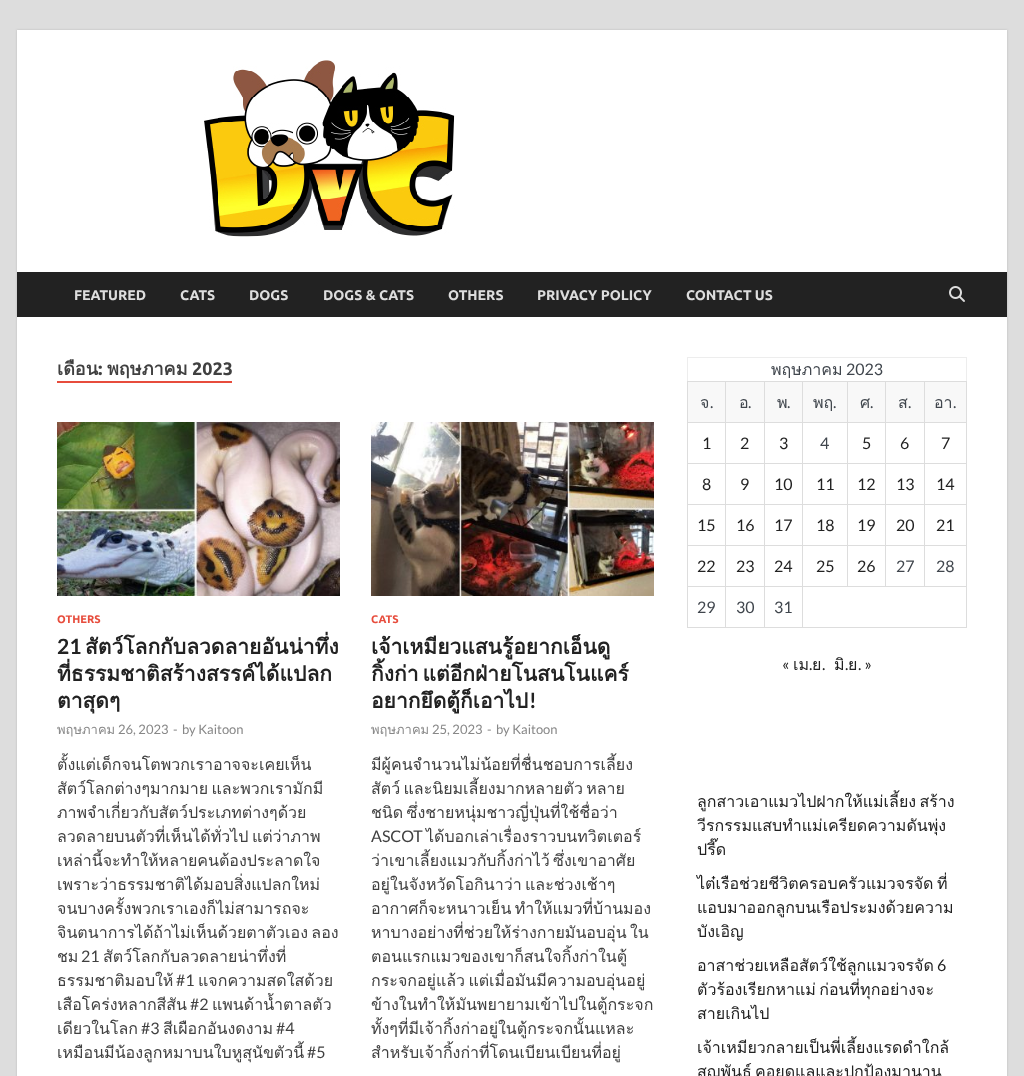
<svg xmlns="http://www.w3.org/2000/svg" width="1024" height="1076">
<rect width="100%" height="100%" fill="#ddd"/>
<rect x="17" y="30" width="990" height="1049" fill="#bbb" filter="blur(1px)"/>
<rect x="17" y="30" width="990" height="1046" fill="#fff"/>
<image x="204" y="60" width="251" height="177" href="media/1.png"/>
<rect x="17" y="272" width="990" height="45" fill="#222"/>
<text x="74" y="300" style="font-family:Ubuntu;font-size:14px;font-weight:bold;fill:#ddd">FEATURED</text>
<text x="180" y="300" style="font-family:Ubuntu;font-size:14px;font-weight:bold;fill:#ddd">CATS</text>
<text x="249" y="300" style="font-family:Ubuntu;font-size:14px;font-weight:bold;fill:#ddd">DOGS</text>
<text x="323" y="300" style="font-family:Ubuntu;font-size:14px;font-weight:bold;fill:#ddd">DOGS &amp; CATS</text>
<text x="448" y="300" style="font-family:Ubuntu;font-size:14px;font-weight:bold;fill:#ddd">OTHERS</text>
<text x="537" y="300" style="font-family:Ubuntu;font-size:14px;font-weight:bold;fill:#ddd">PRIVACY POLICY</text>
<text x="686" y="300" style="font-family:Ubuntu;font-size:14px;font-weight:bold;fill:#ddd">CONTACT US</text>
<image x="949" y="286" width="16" height="16" href="media/2.png"/>
<text x="57" y="375" style="font-family:Loma;font-size:18px;font-weight:bold;fill:#404040">เดือน</text>
<text x="98" y="375" style="font-family:Ubuntu;font-size:18px;font-weight:bold;fill:#404040">:</text>
<text x="107" y="375" style="font-family:Loma;font-size:18px;font-weight:bold;fill:#404040">พฤษภาคม</text>
<rect x="57" y="381" width="175" height="2" fill="#e74c3c"/>
<text x="192" y="375" style="font-family:Ubuntu;font-size:18px;font-weight:bold;fill:#404040">2023</text>
<image x="57" y="422" width="283" height="174" href="media/3.png"/>
<text x="57" y="623" style="font-family:Ubuntu;font-size:11px;font-weight:bold;fill:#e74c3c">OTHERS</text>
<text x="57" y="654" style="font-family:Lato;font-size:21px;font-weight:bold;fill:#222">21</text>
<text x="85" y="654" style="font-family:Loma;font-size:21px;font-weight:bold;fill:#222">สัตว์โลกกับลวดลายอันน่าทึ่ง</text>
<text x="57" y="681" style="font-family:Loma;font-size:21px;font-weight:bold;fill:#222">ที่ธรรมชาติสร้างสรรค์ได้แปลก</text>
<text x="57" y="708" style="font-family:Loma;font-size:21px;font-weight:bold;fill:#222">ตาสุดๆ</text>
<text x="57" y="734" style="font-family:Loma;font-size:13px;fill:#888">พฤษภาคม</text>
<text x="118" y="734" style="font-family:Lato;font-size:13px;fill:#888">26, 2023</text>
<text x="173" y="734" style="font-family:Lato;font-size:13px;fill:#888">-</text>
<text x="182" y="734" style="font-family:Lato;font-size:13px;fill:#888">by Kaitoon</text>
<text x="57" y="770" style="font-family:Loma;font-size:16px;fill:#404040">ตั้งแต่เด็กจนโตพวกเราอาจจะเคยเห็น</text>
<text x="57" y="794" word-spacing="-2" style="font-family:Loma;font-size:16px;fill:#404040">สัตว์โลกต่างๆมากมาย และพวกเรามักมี</text>
<text x="57" y="818" style="font-family:Loma;font-size:16px;fill:#404040">ภาพจำเกี่ยวกับสัตว์ประเภทต่างๆด้วย</text>
<text x="57" y="842" word-spacing="-2" style="font-family:Loma;font-size:16px;fill:#404040">ลวดลายบนตัวที่เห็นได้ทั่วไป แต่ว่าภาพ</text>
<text x="57" y="866" style="font-family:Loma;font-size:16px;fill:#404040">เหล่านี้จะทำให้หลายคนต้องประลาดใจ</text>
<text x="57" y="890" style="font-family:Loma;font-size:16px;fill:#404040">เพราะว่าธรรมชาติได้มอบสิ่งแปลกใหม่</text>
<text x="57" y="914" style="font-family:Loma;font-size:16px;fill:#404040">จนบางครั้งพวกเราเองก็ไม่สามารถจะ</text>
<text x="57" y="938" word-spacing="-2" style="font-family:Loma;font-size:16px;fill:#404040">จินตนาการได้ถ้าไม่เห็นด้วยตาตัวเอง ลอง</text>
<text x="57" y="962" style="font-family:Loma;font-size:16px;fill:#404040">ชม</text>
<text x="81" y="962" style="font-family:Lato;font-size:16px;fill:#404040">21</text>
<text x="103" y="962" style="font-family:Loma;font-size:16px;fill:#404040">สัตว์โลกกับลวดลายน่าทึ่งที่</text>
<text x="57" y="986" style="font-family:Loma;font-size:16px;fill:#404040">ธรรมชาติมอบให้</text>
<text x="176" y="986" style="font-family:Lato;font-size:16px;fill:#404040">#1</text>
<text x="198" y="986" style="font-family:Loma;font-size:16px;fill:#404040">แจกความสดใสด้วย</text>
<text x="57" y="1010" style="font-family:Loma;font-size:16px;fill:#404040">เสือโคร่งหลากสีสัน</text>
<text x="190" y="1010" style="font-family:Lato;font-size:16px;fill:#404040">#2</text>
<text x="212" y="1010" style="font-family:Loma;font-size:16px;fill:#404040">แพนด้าน้ำตาลตัว</text>
<text x="57" y="1034" style="font-family:Loma;font-size:16px;fill:#404040">เดียวในโลก</text>
<text x="141" y="1034" style="font-family:Lato;font-size:16px;fill:#404040">#3</text>
<text x="163" y="1034" style="font-family:Loma;font-size:16px;fill:#404040">สีเผือกอันงดงาม</text>
<text x="276" y="1034" style="font-family:Lato;font-size:16px;fill:#404040">#4</text>
<text x="57" y="1058" style="font-family:Loma;font-size:16px;fill:#404040">เหมือนมีน้องลูกหมาบนใบหูสุนัขตัวนี้</text>
<text x="307" y="1058" style="font-family:Lato;font-size:16px;fill:#404040">#5</text>
<image x="371" y="422" width="283" height="174" href="media/4.png"/>
<text x="371" y="623" style="font-family:Ubuntu;font-size:11px;font-weight:bold;fill:#e74c3c">CATS</text>
<text x="371" y="654" style="font-family:Loma;font-size:21px;font-weight:bold;fill:#222">เจ้าเหมียวแสนรู้อยากเอ็นดู</text>
<text x="371" y="681" word-spacing="-3" style="font-family:Loma;font-size:21px;font-weight:bold;fill:#222">กิ้งก่า แต่อีกฝ่ายโนสนโนแคร์</text>
<text x="371" y="708" style="font-family:Loma;font-size:21px;font-weight:bold;fill:#222">อยากยึดตู้ก็เอาไป</text>
<text x="529" y="708" style="font-family:Lato;font-size:21px;font-weight:bold;fill:#222">!</text>
<text x="371" y="734" style="font-family:Loma;font-size:13px;fill:#888">พฤษภาคม</text>
<text x="432" y="734" style="font-family:Lato;font-size:13px;fill:#888">25, 2023</text>
<text x="487" y="734" style="font-family:Lato;font-size:13px;fill:#888">-</text>
<text x="496" y="734" style="font-family:Lato;font-size:13px;fill:#888">by Kaitoon</text>
<text x="371" y="770" style="font-family:Loma;font-size:16px;fill:#404040">มีผู้คนจำนวนไม่น้อยที่ชื่นชอบการเลี้ยง</text>
<text x="371" y="794" word-spacing="-2" style="font-family:Loma;font-size:16px;fill:#404040">สัตว์ และนิยมเลี้ยงมากหลายตัว หลาย</text>
<text x="371" y="818" word-spacing="-2" style="font-family:Loma;font-size:16px;fill:#404040">ชนิด ซึ่งชายหนุ่มชาวญี่ปุ่นที่ใช้ชื่อว่า</text>
<text x="371" y="842" style="font-family:Lato;font-size:16px;fill:#404040">ASCOT</text>
<text x="426" y="842" style="font-family:Loma;font-size:16px;fill:#404040">ได้บอกเล่าเรื่องราวบนทวิตเตอร์</text>
<text x="371" y="866" word-spacing="-2" style="font-family:Loma;font-size:16px;fill:#404040">ว่าเขาเลี้ยงแมวกับกิ้งก่าไว้ ซึ่งเขาอาศัย</text>
<text x="371" y="890" word-spacing="-2" style="font-family:Loma;font-size:16px;fill:#404040">อยู่ในจังหวัดโอกินาว่า และช่วงเช้าๆ</text>
<text x="371" y="914" word-spacing="-2" style="font-family:Loma;font-size:16px;fill:#404040">อากาศก็จะหนาวเย็น ทำให้แมวที่บ้านมอง</text>
<text x="371" y="938" word-spacing="-2" style="font-family:Loma;font-size:16px;fill:#404040">หาบางอย่างที่ช่วยให้ร่างกายมันอบอุ่น ใน</text>
<text x="371" y="962" style="font-family:Loma;font-size:16px;fill:#404040">ตอนแรกแมวของเขาก็สนใจกิ้งก่าในตู้</text>
<text x="371" y="986" word-spacing="-2" style="font-family:Loma;font-size:16px;fill:#404040">กระจกอยู่แล้ว แต่เมื่อมันมีความอบอุ่นอยู่</text>
<text x="371" y="1010" style="font-family:Loma;font-size:16px;fill:#404040">ข้างในทำให้มันพยายามเข้าไปในตู้กระจก</text>
<text x="371" y="1034" style="font-family:Loma;font-size:16px;fill:#404040">ทั้งๆที่มีเจ้ากิ้งก่าอยู่ในตู้กระจกนั้นแหละ</text>
<text x="371" y="1058" style="font-family:Loma;font-size:16px;fill:#404040">สำหรับเจ้ากิ้งก่าที่โดนเบียนเบียนที่อยู่</text>
<rect x="687" y="357" width="280" height="1" fill="#ededed"/>
<rect x="966" y="357" width="1" height="24" fill="#ededed"/>
<rect x="687" y="357" width="1" height="24" fill="#ededed"/>
<text x="771" y="375" style="font-family:Loma;font-size:16px;fill:#40464d">พฤษภาคม</text>
<text x="846" y="375" style="font-family:Lato;font-size:16px;fill:#40464d">2023</text>
<rect x="688" y="382" width="37" height="40" fill="#f8f8f8"/>
<rect x="924" y="381" width="43" height="1" fill="#ddd"/>
<rect x="924" y="422" width="43" height="1" fill="#ddd"/>
<rect x="924" y="463" width="43" height="1" fill="#ddd"/>
<rect x="924" y="504" width="43" height="1" fill="#ddd"/>
<rect x="924" y="545" width="43" height="1" fill="#ddd"/>
<rect x="802" y="586" width="165" height="1" fill="#ddd"/>
<rect x="924" y="545" width="1" height="42" fill="#ddd"/>
<rect x="885" y="545" width="40" height="1" fill="#ddd"/>
<rect x="924" y="504" width="1" height="42" fill="#ddd"/>
<rect x="885" y="504" width="40" height="1" fill="#ddd"/>
<rect x="924" y="463" width="1" height="42" fill="#ddd"/>
<rect x="885" y="463" width="40" height="1" fill="#ddd"/>
<rect x="924" y="422" width="1" height="42" fill="#ddd"/>
<rect x="885" y="422" width="40" height="1" fill="#ddd"/>
<rect x="924" y="381" width="1" height="42" fill="#ddd"/>
<rect x="885" y="381" width="40" height="1" fill="#ddd"/>
<rect x="885" y="545" width="1" height="42" fill="#ddd"/>
<rect x="847" y="545" width="39" height="1" fill="#ddd"/>
<rect x="885" y="504" width="1" height="42" fill="#ddd"/>
<rect x="847" y="504" width="39" height="1" fill="#ddd"/>
<rect x="885" y="463" width="1" height="42" fill="#ddd"/>
<rect x="847" y="463" width="39" height="1" fill="#ddd"/>
<rect x="885" y="422" width="1" height="42" fill="#ddd"/>
<rect x="847" y="422" width="39" height="1" fill="#ddd"/>
<rect x="885" y="381" width="1" height="42" fill="#ddd"/>
<rect x="847" y="381" width="39" height="1" fill="#ddd"/>
<rect x="847" y="545" width="1" height="42" fill="#ddd"/>
<rect x="802" y="545" width="46" height="1" fill="#ddd"/>
<rect x="847" y="504" width="1" height="42" fill="#ddd"/>
<rect x="802" y="504" width="46" height="1" fill="#ddd"/>
<rect x="847" y="463" width="1" height="42" fill="#ddd"/>
<rect x="802" y="463" width="46" height="1" fill="#ddd"/>
<rect x="847" y="422" width="1" height="42" fill="#ddd"/>
<rect x="802" y="422" width="46" height="1" fill="#ddd"/>
<rect x="847" y="381" width="1" height="42" fill="#ddd"/>
<rect x="802" y="381" width="46" height="1" fill="#ddd"/>
<rect x="966" y="586" width="1" height="42" fill="#ddd"/>
<rect x="802" y="627" width="165" height="1" fill="#ddd"/>
<rect x="802" y="586" width="1" height="42" fill="#ddd"/>
<rect x="764" y="586" width="39" height="1" fill="#ddd"/>
<rect x="802" y="545" width="1" height="42" fill="#ddd"/>
<rect x="764" y="545" width="39" height="1" fill="#ddd"/>
<rect x="802" y="504" width="1" height="42" fill="#ddd"/>
<rect x="764" y="504" width="39" height="1" fill="#ddd"/>
<rect x="802" y="463" width="1" height="42" fill="#ddd"/>
<rect x="764" y="463" width="39" height="1" fill="#ddd"/>
<rect x="802" y="422" width="1" height="42" fill="#ddd"/>
<rect x="764" y="422" width="39" height="1" fill="#ddd"/>
<rect x="802" y="381" width="1" height="42" fill="#ddd"/>
<rect x="764" y="381" width="39" height="1" fill="#ddd"/>
<rect x="764" y="627" width="39" height="1" fill="#ddd"/>
<rect x="764" y="586" width="1" height="42" fill="#ddd"/>
<rect x="725" y="586" width="40" height="1" fill="#ddd"/>
<rect x="764" y="545" width="1" height="42" fill="#ddd"/>
<rect x="725" y="545" width="40" height="1" fill="#ddd"/>
<rect x="764" y="504" width="1" height="42" fill="#ddd"/>
<rect x="725" y="504" width="40" height="1" fill="#ddd"/>
<rect x="764" y="463" width="1" height="42" fill="#ddd"/>
<rect x="725" y="463" width="40" height="1" fill="#ddd"/>
<rect x="764" y="422" width="1" height="42" fill="#ddd"/>
<rect x="725" y="422" width="40" height="1" fill="#ddd"/>
<rect x="764" y="381" width="1" height="42" fill="#ddd"/>
<rect x="725" y="381" width="40" height="1" fill="#ddd"/>
<rect x="725" y="627" width="40" height="1" fill="#ddd"/>
<rect x="725" y="586" width="1" height="42" fill="#ddd"/>
<rect x="687" y="586" width="39" height="1" fill="#ddd"/>
<rect x="725" y="545" width="1" height="42" fill="#ddd"/>
<rect x="687" y="545" width="39" height="1" fill="#ddd"/>
<rect x="725" y="504" width="1" height="42" fill="#ddd"/>
<rect x="687" y="504" width="39" height="1" fill="#ddd"/>
<rect x="725" y="463" width="1" height="42" fill="#ddd"/>
<rect x="687" y="463" width="39" height="1" fill="#ddd"/>
<rect x="725" y="422" width="1" height="42" fill="#ddd"/>
<rect x="687" y="422" width="39" height="1" fill="#ddd"/>
<rect x="725" y="381" width="1" height="42" fill="#ddd"/>
<rect x="687" y="381" width="39" height="1" fill="#ddd"/>
<rect x="687" y="627" width="39" height="1" fill="#ddd"/>
<rect x="687" y="586" width="1" height="42" fill="#ddd"/>
<rect x="687" y="545" width="1" height="42" fill="#ddd"/>
<rect x="687" y="504" width="1" height="42" fill="#ddd"/>
<rect x="687" y="463" width="1" height="42" fill="#ddd"/>
<rect x="687" y="422" width="1" height="42" fill="#ddd"/>
<rect x="687" y="381" width="1" height="42" fill="#ddd"/>
<text x="700" y="408" style="font-family:Loma;font-size:16px;fill:#40464d">จ</text>
<text x="710" y="408" style="font-family:Lato;font-size:16px;fill:#40464d">.</text>
<rect x="726" y="382" width="38" height="40" fill="#f8f8f8"/>
<text x="739" y="408" style="font-family:Loma;font-size:16px;fill:#40464d">อ</text>
<text x="748" y="408" style="font-family:Lato;font-size:16px;fill:#40464d">.</text>
<rect x="765" y="382" width="37" height="40" fill="#f8f8f8"/>
<text x="777" y="408" style="font-family:Loma;font-size:16px;fill:#40464d">พ</text>
<text x="787" y="408" style="font-family:Lato;font-size:16px;fill:#40464d">.</text>
<rect x="803" y="382" width="44" height="40" fill="#f8f8f8"/>
<text x="813" y="408" style="font-family:Loma;font-size:16px;fill:#40464d">พฤ</text>
<text x="833" y="408" style="font-family:Lato;font-size:16px;fill:#40464d">.</text>
<rect x="848" y="382" width="37" height="40" fill="#f8f8f8"/>
<text x="860" y="408" style="font-family:Loma;font-size:16px;fill:#40464d">ศ</text>
<text x="870" y="408" style="font-family:Lato;font-size:16px;fill:#40464d">.</text>
<rect x="886" y="382" width="38" height="40" fill="#f8f8f8"/>
<text x="898" y="408" style="font-family:Loma;font-size:16px;fill:#40464d">ส</text>
<text x="908" y="408" style="font-family:Lato;font-size:16px;fill:#40464d">.</text>
<rect x="925" y="382" width="41" height="40" fill="#f8f8f8"/>
<rect x="966" y="545" width="1" height="42" fill="#ddd"/>
<rect x="966" y="504" width="1" height="42" fill="#ddd"/>
<rect x="966" y="463" width="1" height="42" fill="#ddd"/>
<rect x="966" y="422" width="1" height="42" fill="#ddd"/>
<rect x="966" y="381" width="1" height="42" fill="#ddd"/>
<text x="934" y="408" style="font-family:Loma;font-size:16px;fill:#40464d">อา</text>
<text x="953" y="408" style="font-family:Lato;font-size:16px;fill:#40464d">.</text>
<text x="702" y="449" style="font-family:Lato;font-size:16px;fill:#222">1</text>
<text x="740" y="449" style="font-family:Lato;font-size:16px;fill:#222">2</text>
<text x="779" y="449" style="font-family:Lato;font-size:16px;fill:#222">3</text>
<text x="820" y="449" style="font-family:Lato;font-size:16px;fill:#40464d">4</text>
<text x="862" y="449" style="font-family:Lato;font-size:16px;fill:#222">5</text>
<text x="900" y="449" style="font-family:Lato;font-size:16px;fill:#222">6</text>
<text x="941" y="449" style="font-family:Lato;font-size:16px;fill:#222">7</text>
<text x="702" y="490" style="font-family:Lato;font-size:16px;fill:#222">8</text>
<text x="740" y="490" style="font-family:Lato;font-size:16px;fill:#222">9</text>
<text x="774" y="490" style="font-family:Lato;font-size:16px;fill:#222">10</text>
<text x="816" y="490" style="font-family:Lato;font-size:16px;fill:#222">11</text>
<text x="857" y="490" style="font-family:Lato;font-size:16px;fill:#222">12</text>
<text x="896" y="490" style="font-family:Lato;font-size:16px;fill:#222">13</text>
<text x="936" y="490" style="font-family:Lato;font-size:16px;fill:#222">14</text>
<text x="697" y="531" style="font-family:Lato;font-size:16px;fill:#222">15</text>
<text x="736" y="531" style="font-family:Lato;font-size:16px;fill:#222">16</text>
<text x="774" y="531" style="font-family:Lato;font-size:16px;fill:#222">17</text>
<text x="816" y="531" style="font-family:Lato;font-size:16px;fill:#222">18</text>
<text x="857" y="531" style="font-family:Lato;font-size:16px;fill:#222">19</text>
<text x="896" y="531" style="font-family:Lato;font-size:16px;fill:#222">20</text>
<text x="936" y="531" style="font-family:Lato;font-size:16px;fill:#222">21</text>
<text x="697" y="572" style="font-family:Lato;font-size:16px;fill:#222">22</text>
<text x="736" y="572" style="font-family:Lato;font-size:16px;fill:#222">23</text>
<text x="774" y="572" style="font-family:Lato;font-size:16px;fill:#222">24</text>
<text x="816" y="572" style="font-family:Lato;font-size:16px;fill:#222">25</text>
<text x="857" y="572" style="font-family:Lato;font-size:16px;fill:#222">26</text>
<text x="896" y="572" style="font-family:Lato;font-size:16px;fill:#40464d">27</text>
<text x="936" y="572" style="font-family:Lato;font-size:16px;fill:#40464d">28</text>
<text x="697" y="613" style="font-family:Lato;font-size:16px;fill:#40464d">29</text>
<text x="736" y="613" style="font-family:Lato;font-size:16px;fill:#40464d">30</text>
<text x="774" y="613" style="font-family:Lato;font-size:16px;fill:#40464d">31</text>
<text x="782" y="670" style="font-family:Lato;font-size:16px;fill:#222">«</text>
<text x="793" y="670" style="font-family:Loma;font-size:16px;fill:#222">เม</text>
<text x="809" y="670" style="font-family:Lato;font-size:16px;fill:#222">.</text>
<text x="812" y="670" style="font-family:Loma;font-size:16px;fill:#222">ย</text>
<text x="822" y="670" style="font-family:Lato;font-size:16px;fill:#222">.</text>
<text x="834" y="670" style="font-family:Loma;font-size:16px;fill:#222">มิ</text>
<text x="845" y="670" style="font-family:Lato;font-size:16px;fill:#222">.</text>
<text x="848" y="670" style="font-family:Loma;font-size:16px;fill:#222">ย</text>
<text x="858" y="670" style="font-family:Lato;font-size:16px;fill:#222">. »</text>
<text x="697" y="807" word-spacing="-2" style="font-family:Loma;font-size:16px;fill:#222">ลูกสาวเอาแมวไปฝากให้แม่เลี้ยง สร้าง</text>
<text x="697" y="831" style="font-family:Loma;font-size:16px;fill:#222">วีรกรรมแสบทำแม่เครียดความดันพุ่ง</text>
<text x="697" y="855" style="font-family:Loma;font-size:16px;fill:#222">ปรี๊ด</text>
<text x="697" y="889" word-spacing="-2" style="font-family:Loma;font-size:16px;fill:#222">ไต๋เรือช่วยชีวิตครอบครัวแมวจรจัด ที่</text>
<text x="697" y="913" style="font-family:Loma;font-size:16px;fill:#222">แอบมาออกลูกบนเรือประมงด้วยความ</text>
<text x="697" y="937" style="font-family:Loma;font-size:16px;fill:#222">บังเอิญ</text>
<text x="697" y="971" style="font-family:Loma;font-size:16px;fill:#222">อาสาช่วยเหลือสัตว์ใช้ลูกแมวจรจัด</text>
<text x="937" y="971" style="font-family:Lato;font-size:16px;fill:#222">6</text>
<text x="697" y="995" word-spacing="-2" style="font-family:Loma;font-size:16px;fill:#222">ตัวร้องเรียกหาแม่ ก่อนที่ทุกอย่างจะ</text>
<text x="697" y="1019" style="font-family:Loma;font-size:16px;fill:#222">สายเกินไป</text>
<text x="697" y="1053" style="font-family:Loma;font-size:16px;fill:#222">เจ้าเหมียวกลายเป็นพี่เลี้ยงแรดดำใกล้</text>
<text x="697" y="1077" word-spacing="-2" style="font-family:Loma;font-size:16px;fill:#222">สูญพันธุ์ คอยดูแลและปกป้องมานาน</text>
</svg>
